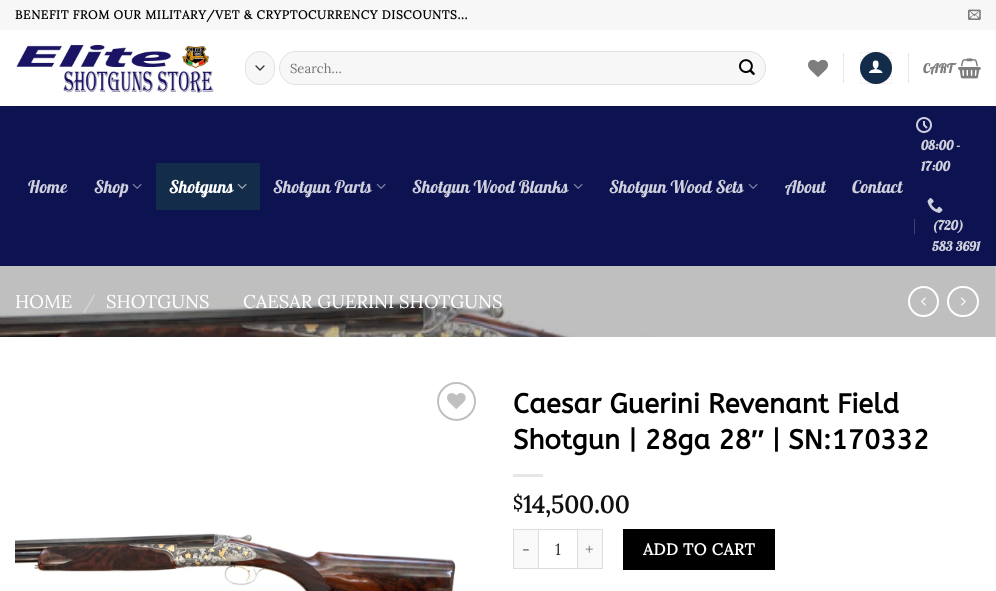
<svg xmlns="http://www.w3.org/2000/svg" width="996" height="591">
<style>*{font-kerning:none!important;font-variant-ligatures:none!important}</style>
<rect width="100%" height="100%" fill="#fff"/>
<rect width="996" height="30" fill="#f7f7f7"/>
<text x="15" y="19" style="font-family:Lora;font-size:12px;font-weight:bold;letter-spacing:0.6px;fill:#000">BENEFIT FROM OUR MILITARY/VET &amp; CRYPTOCURRENCY DISCOUNTS...</text>
<image x="968" y="9" width="13" height="11" href="media/1.png"/>
<image x="15" y="43" width="199" height="50" href="media/2.png"/>
<rect x="245" y="51" width="30" height="34" rx="15" fill="#f7f7f7"/>
<path d="M256 66l4 4l4-4" fill="none" stroke="#333" stroke-width="1.3" stroke-linecap="round" stroke-linejoin="round"/>
<rect x="245.5" y="51.5" width="29" height="33" rx="14.5" fill="none" stroke="#00000017"/>
<rect x="279" y="51" width="487" height="34" rx="17" fill="#f7f7f7"/>
<rect x="279.5" y="51.5" width="486" height="33" rx="16.5" fill="none" stroke="#00000017"/>
<text x="290" y="73" style="font-family:Lora;font-size:13px;fill:#757575">Search…</text>
<image x="739" y="59" width="16" height="16" href="media/3.png"/>
<image x="808" y="59" width="20" height="18" href="media/4.png"/>
<rect x="843" y="53" width="1" height="30" fill="#e6e6e6"/>
<circle cx="876" cy="68" r="16" fill="#122c49"/>
<rect x="860.5" y="52.5" width="31" height="31" fill="none" stroke="#0000000d"/>
<image x="869" y="60" width="14" height="13" href="media/5.png"/>
<rect x="908" y="53" width="1" height="30" fill="#e6e6e6"/>
<text x="923" y="73" style="font-family:Lobster;font-size:13px;font-weight:bold;letter-spacing:0.25px;fill:#7d7d7d">CART</text>
<image x="958" y="58" width="23" height="21" href="media/6.png"/>
<rect y="106" width="996" height="160" fill="#0d1251"/>
<rect x="15" y="106" width="966" height="1" fill="#0c1049"/>
<text x="28" y="193" style="font-family:Lobster;font-size:17.5px;fill:#cfd0dc">Home</text>
<text x="94" y="193" style="font-family:Lobster;font-size:17.5px;fill:#cfd0dc">Shop</text>
<image x="132" y="183" width="10" height="6" href="media/7.png"/>
<rect x="156" y="163" width="104" height="47" fill="#122c49"/>
<text x="169" y="193" style="font-family:Lobster;font-size:17.5px;fill:#fff">Shotguns</text>
<image x="237" y="183" width="10" height="6" href="media/8.png"/>
<text x="273" y="193" style="font-family:Lobster;font-size:17.5px;fill:#cfd0dc">Shotgun Parts</text>
<image x="376" y="183" width="10" height="6" href="media/7.png"/>
<text x="412" y="193" style="font-family:Lobster;font-size:17.5px;fill:#cfd0dc">Shotgun Wood Blanks</text>
<image x="573" y="183" width="10" height="6" href="media/7.png"/>
<text x="609" y="193" style="font-family:Lobster;font-size:17.5px;fill:#cfd0dc">Shotgun Wood Sets</text>
<image x="748" y="183" width="10" height="6" href="media/7.png"/>
<text x="785" y="193" style="font-family:Lobster;font-size:17.5px;fill:#cfd0dc">About</text>
<text x="852" y="193" style="font-family:Lobster;font-size:17.5px;fill:#cfd0dc">Contact</text>
<image x="916" y="117" width="16" height="16" href="media/9.png"/>
<text x="921" y="150" style="font-family:Lobster;font-size:13px;font-weight:bold;letter-spacing:0.25px;fill:#cfd0dc">08:00 -</text>
<text x="921" y="171" style="font-family:Lobster;font-size:13px;font-weight:bold;letter-spacing:0.25px;fill:#cfd0dc">17:00</text>
<image x="927" y="198" width="16" height="15" href="media/10.png"/>
<rect x="914" y="219" width="1" height="15" fill="#3d4174"/>
<text x="932" y="230" style="font-family:Lobster;font-size:13px;font-weight:bold;letter-spacing:0.25px;fill:#cfd0dc">(720)</text>
<text x="932" y="251" style="font-family:Lobster;font-size:13px;font-weight:bold;letter-spacing:0.25px;fill:#cfd0dc">583 3691</text>
<image x="0" y="266" width="996" height="71" href="media/11.png"/>
<text x="15" y="308" style="font-family:Lora;font-size:18.4px;fill:#fff">HOME</text>
<text x="83" y="308" style="font-family:Lora;font-size:18.4px;fill:#d5d5d5">/</text>
<text x="106" y="308" style="font-family:Lora;font-size:18.4px;fill:#fff">SHOTGUNS</text>
<text x="243" y="308" style="font-family:Lora;font-size:18.4px;fill:#fff">CAESAR GUERINI SHOTGUNS</text>
<circle cx="923.5" cy="301.5" r="14.5" fill="none" stroke="#fff" stroke-width="2"/>
<image x="921" y="297" width="5" height="9" href="media/12.png"/>
<rect x="948" y="287" width="30" height="29" rx="14.5" fill="none" stroke="#fff" stroke-width="2"/>
<image x="961" y="297" width="5" height="9" href="media/13.png"/>
<circle cx="456.5" cy="401.5" r="18.5" fill="none" stroke="#c0c0c0" stroke-width="2"/>
<image x="447" y="393" width="19" height="16" href="media/14.png"/>
<image x="15" y="533" width="441" height="58" href="media/15.png"/>
<text x="513" y="413" style="font-family:ABeeZee;font-size:27.25px;font-weight:bold;fill:#000">Caesar Guerini Revenant Field</text>
<text x="513" y="449" style="font-family:ABeeZee;font-size:27.25px;font-weight:bold;fill:#000">Shotgun | 28ga 28</text>
<text x="751" y="449" style="font-family:Liberation Sans;font-size:27.25px;font-weight:bold;fill:#000">″</text>
<text x="772" y="449" style="font-family:ABeeZee;font-size:27.25px;font-weight:bold;fill:#000">| SN:170332</text>
<rect x="513" y="474" width="30" height="3" fill="#e6e6e6"/>
<text x="513" y="509" style="font-family:Lora;font-size:18px;font-weight:bold;fill:#111">$</text>
<text x="523" y="513" style="font-family:Lora;font-size:24px;font-weight:bold;fill:#111">14,500.00</text>
<rect x="514" y="530" width="24" height="38" fill="#f9f9f9"/>
<rect x="513" y="529" width="25" height="1" fill="#ddd"/>
<rect x="513" y="568" width="25" height="1" fill="#ddd"/>
<rect x="513" y="529" width="1" height="40" fill="#ddd"/>
<text x="522" y="555" style="font-family:Lora;font-size:16px;fill:#666">-</text>
<rect x="538.5" y="529.5" width="39" height="39" fill="none" stroke="#ddd"/>
<text x="555" y="555" style="font-family:Lora;font-size:16px;fill:#333">1</text>
<rect x="578" y="530" width="24" height="38" fill="#f9f9f9"/>
<rect x="578" y="529" width="25" height="1" fill="#ddd"/>
<rect x="602" y="529" width="1" height="40" fill="#ddd"/>
<rect x="578" y="568" width="25" height="1" fill="#ddd"/>
<text x="585" y="555" style="font-family:Lora;font-size:16px;fill:#666">+</text>
<rect x="623" y="529" width="152" height="41" fill="#000"/>
<text x="643" y="555" style="font-family:Lora;font-size:16px;font-weight:bold;letter-spacing:0.5px;fill:#fff">ADD TO CART</text>
</svg>
